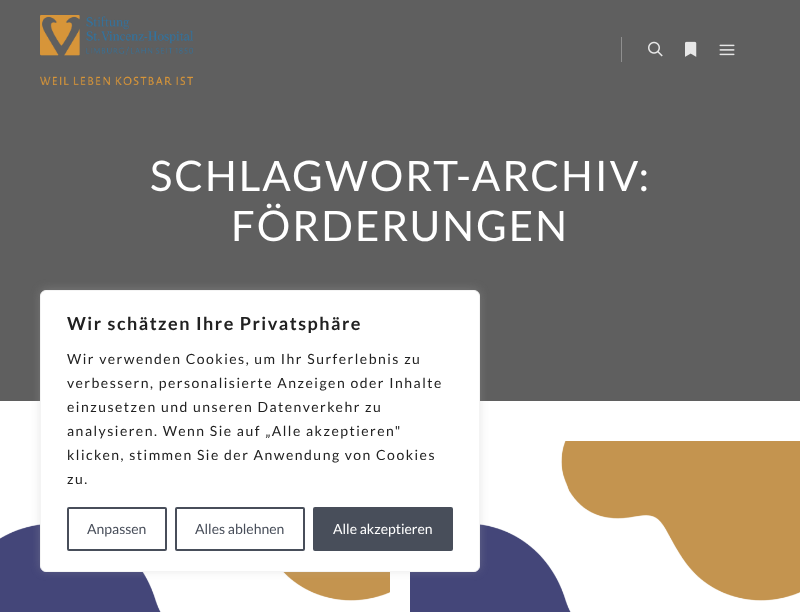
<svg xmlns="http://www.w3.org/2000/svg" width="800" height="612">
<rect width="100%" height="100%" fill="#fff"/>
<rect width="800" height="401" fill="#5f5f5f"/>
<image x="40" y="15" width="153" height="70" href="media/1.png"/>
<rect x="621" y="37" width="1" height="25" fill="#8f8f8f"/>
<image x="648" y="41" width="15" height="16" href="media/2.png"/>
<image x="685" y="41" width="12" height="16" href="media/3.png"/>
<image x="719" y="44" width="16" height="12" href="media/4.png"/>
<text x="150" y="191" style="font-family:Lato;font-size:42px;letter-spacing:2px;fill:#fff">SCHLAGWORT-ARCHIV:</text>
<text x="231" y="241" style="font-family:Lato;font-size:42px;letter-spacing:2px;fill:#fff">FÖRDERUNGEN</text>
<image x="0" y="441" width="390" height="171" href="media/5.png"/>
<image x="410" y="441" width="390" height="171" href="media/5.png"/>
<rect x="40" y="289" width="440" height="282" rx="6" fill="#acabab4d" filter="blur(5px)"/>
<rect x="40.5" y="290.5" width="439" height="281" rx="5.5" fill="#fff" stroke="#f4f4f4"/>
<text x="67" y="330" style="font-family:Lato;font-size:18px;font-weight:bold;letter-spacing:1.5px;fill:#212121">Wir schätzen Ihre Privatsphäre</text>
<text x="67" y="364" style="font-family:Lato;font-size:14px;letter-spacing:1.5px;fill:#212121">Wir verwenden Cookies, um Ihr Surferlebnis zu</text>
<text x="67" y="388" style="font-family:Lato;font-size:14px;letter-spacing:1.5px;fill:#212121">verbessern, personalisierte Anzeigen oder Inhalte</text>
<text x="67" y="412" style="font-family:Lato;font-size:14px;letter-spacing:1.5px;fill:#212121">einzusetzen und unseren Datenverkehr zu</text>
<text x="67" y="436" style="font-family:Lato;font-size:14px;letter-spacing:1.5px;fill:#212121">analysieren. Wenn Sie auf „Alle akzeptieren"</text>
<text x="67" y="460" style="font-family:Lato;font-size:14px;letter-spacing:1.5px;fill:#212121">klicken, stimmen Sie der Anwendung von Cookies</text>
<text x="67" y="484" style="font-family:Lato;font-size:14px;letter-spacing:1.5px;fill:#212121">zu.</text>
<rect x="68" y="508" width="98" height="42" rx="1" fill="none" stroke="#484e5a" stroke-width="2"/>
<text x="87" y="534" style="font-family:Lato;font-size:14px;fill:#484e5a">Anpassen</text>
<rect x="176" y="508" width="128" height="42" rx="1" fill="none" stroke="#484e5a" stroke-width="2"/>
<text x="195" y="534" style="font-family:Lato;font-size:14px;fill:#484e5a">Alles ablehnen</text>
<rect x="314" y="508" width="138" height="42" rx="1" fill="#484e5a" stroke="#484e5a" stroke-width="2"/>
<text x="333" y="534" style="font-family:Lato;font-size:14px;fill:#fff">Alle akzeptieren</text>
</svg>
